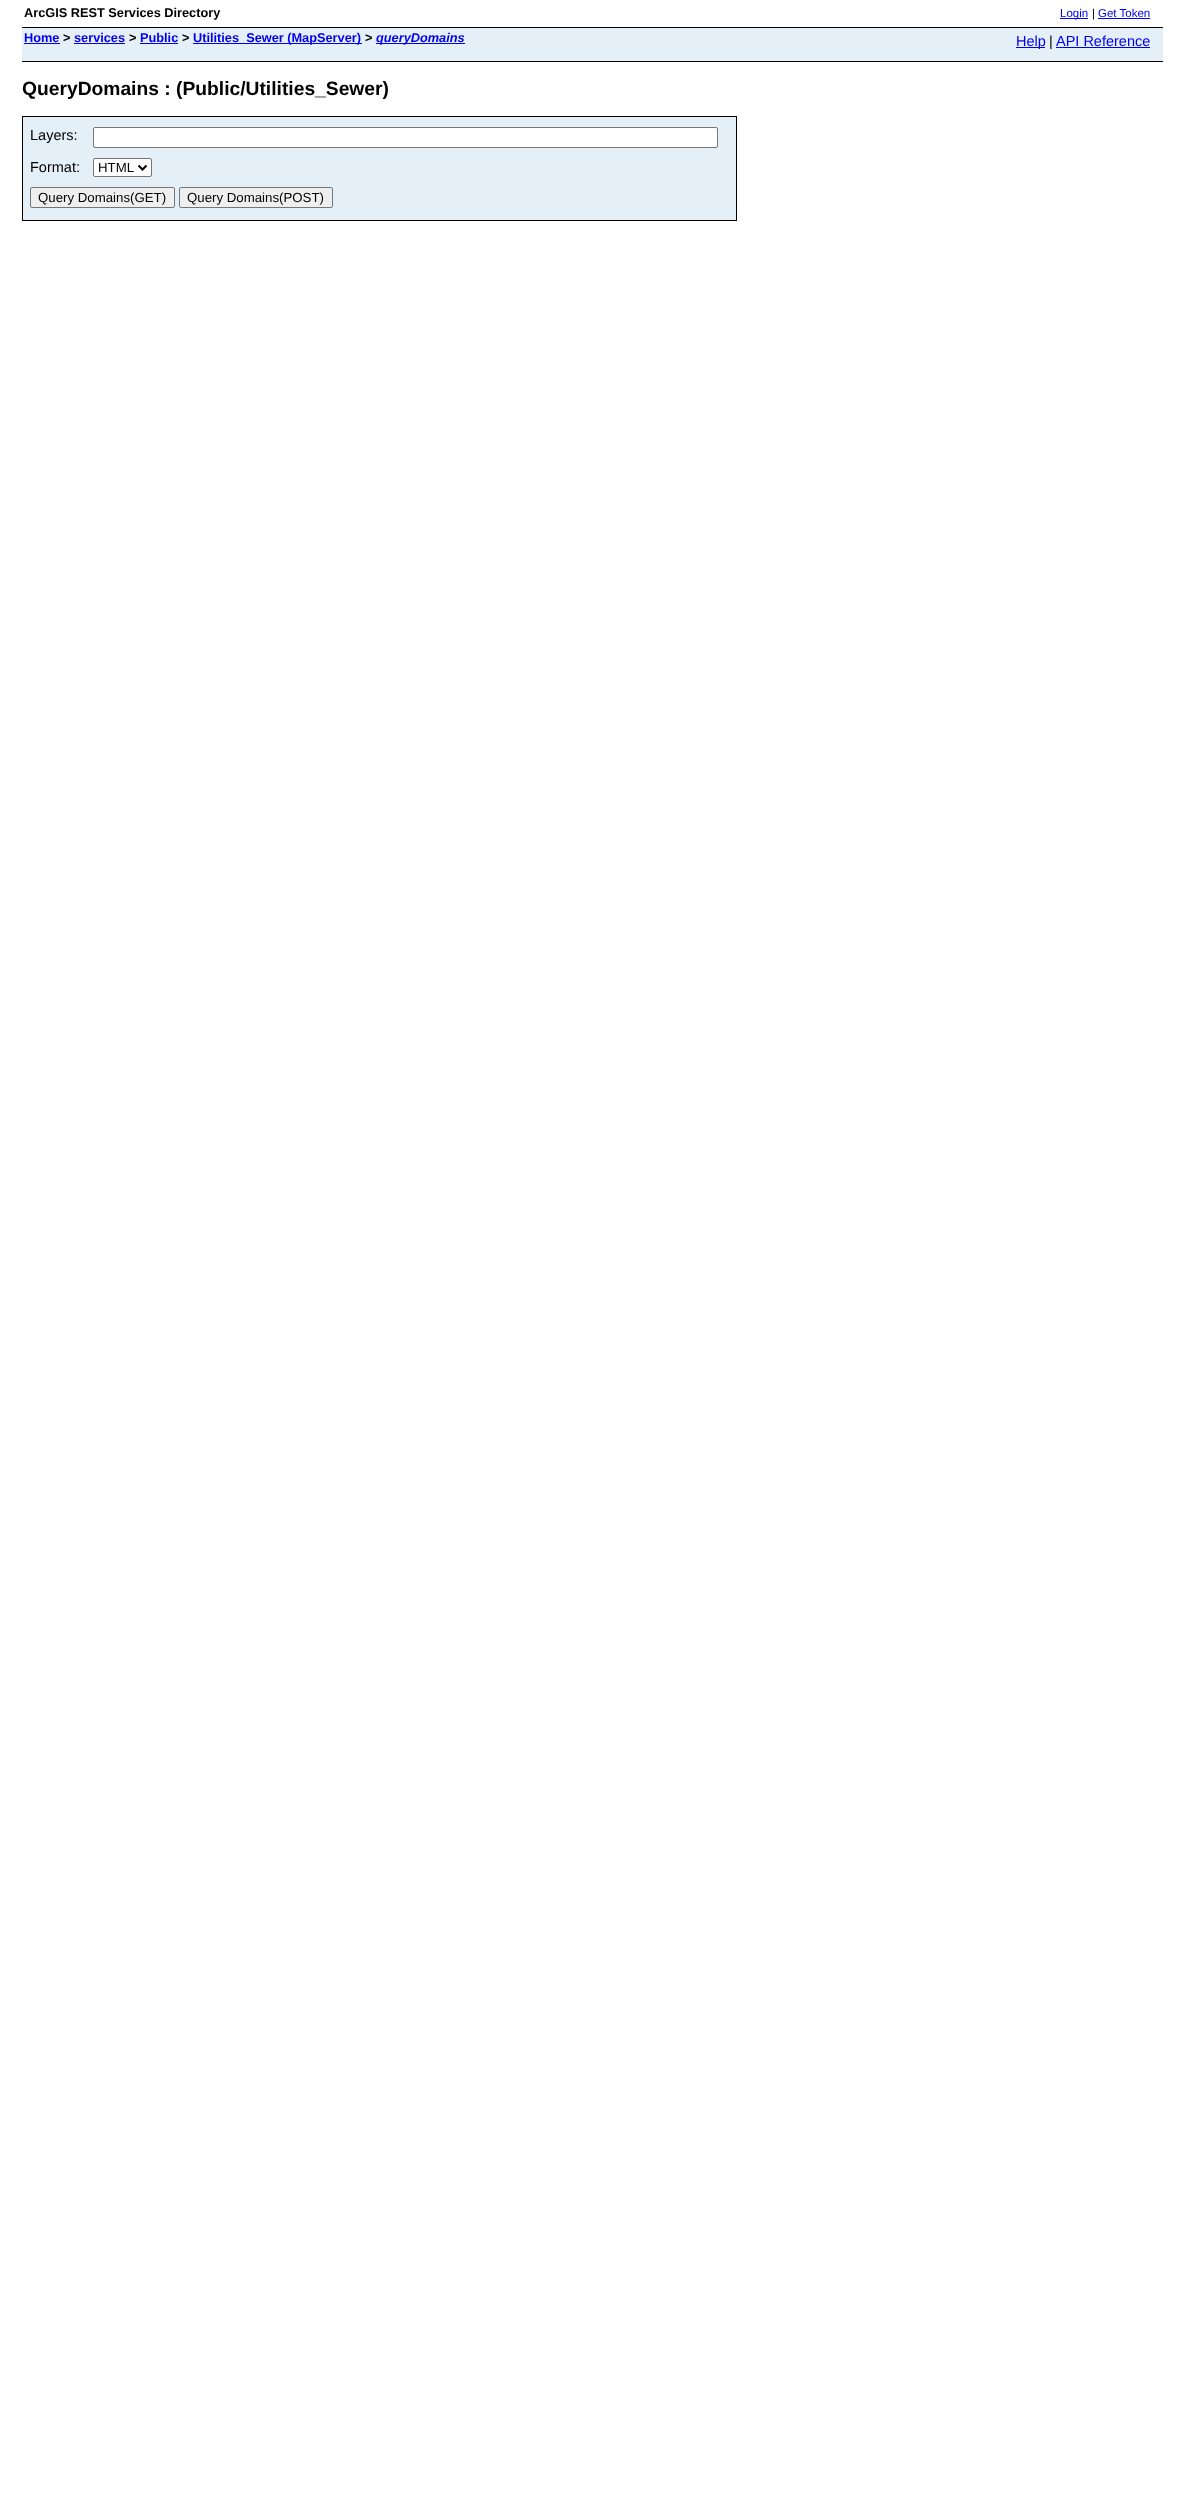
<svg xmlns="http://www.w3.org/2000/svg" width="1185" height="2500">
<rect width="100%" height="100%" fill="#fff"/>
<text x="24" y="17" style="font-family:Liberation Sans;font-size:12.75px;font-weight:bold;fill:#000">ArcGIS REST Services Directory</text>
<rect x="1060" y="18" width="28" height="1" fill="#00e"/>
<text x="1060" y="17" style="font-family:Liberation Sans;font-size:11.5px;fill:#00e">Login</text>
<text x="1092" y="17" style="font-family:Liberation Sans;font-size:11.5px;fill:#000">|</text>
<text x="1098" y="17" style="font-family:Liberation Sans;font-size:11.5px;fill:#00e">Get Token</text>
<rect x="1098" y="18" width="52" height="1" fill="#00e"/>
<rect x="22" y="28" width="1141" height="33" fill="#e5eff7"/>
<rect x="22" y="27" width="1141" height="1" fill="#000"/>
<rect x="22" y="61" width="1141" height="1" fill="#000"/>
<text x="24" y="42" style="font-family:Liberation Sans;font-size:12.75px;font-weight:bold;fill:#00e">Home</text>
<rect x="24" y="43" width="36" height="1" fill="#00e"/>
<text x="63" y="42" style="font-family:Liberation Sans;font-size:12.75px;font-weight:bold;fill:#000">&gt;</text>
<text x="74" y="42" style="font-family:Liberation Sans;font-size:12.75px;font-weight:bold;fill:#00e">services</text>
<rect x="74" y="43" width="51" height="1" fill="#00e"/>
<text x="129" y="42" style="font-family:Liberation Sans;font-size:12.75px;font-weight:bold;fill:#000">&gt;</text>
<text x="140" y="42" style="font-family:Liberation Sans;font-size:12.75px;font-weight:bold;fill:#00e">Public</text>
<rect x="140" y="43" width="38" height="1" fill="#00e"/>
<text x="182" y="42" style="font-family:Liberation Sans;font-size:12.75px;font-weight:bold;fill:#000">&gt;</text>
<rect x="193" y="43" width="169" height="1" fill="#00e"/>
<text x="193" y="42" style="font-family:Liberation Sans;font-size:12.75px;font-weight:bold;fill:#00e">Utilities_Sewer (MapServer)</text>
<text x="365" y="42" style="font-family:Liberation Sans;font-size:12.75px;font-weight:bold;fill:#000">&gt;</text>
<rect x="376" y="43" width="89" height="1" fill="#00e"/>
<text x="376" y="42" style="font-family:Liberation Sans;font-size:12.75px;font-weight:bold;font-style:italic;fill:#00e">queryDomains</text>
<rect x="1016" y="47" width="29" height="1" fill="#00e"/>
<text x="1016" y="46" style="font-family:Liberation Sans;font-size:14.5px;fill:#00e">Help</text>
<text x="1049" y="46" style="font-family:Liberation Sans;font-size:14.5px;fill:#000">|</text>
<text x="1056" y="46" style="font-family:Liberation Sans;font-size:14.5px;fill:#00e">API Reference</text>
<rect x="1056" y="47" width="94" height="1" fill="#00e"/>
<text x="22" y="95" style="font-family:Liberation Sans;font-size:19.25px;font-weight:bold;fill:#000">QueryDomains : (Public/Utilities_Sewer)</text>
<rect x="22.5" y="116.5" width="714" height="104" fill="#e5eff7" stroke="#000"/>
<text x="30" y="140" style="font-family:Liberation Sans;font-size:14.5px;fill:#000">Layers:</text>
<rect x="93.5" y="127.5" width="624" height="20" rx="1.5" fill="#fff" stroke="#767676"/>
<text x="30" y="172" style="font-family:Liberation Sans;font-size:14.5px;fill:#000">Format:</text>
<rect x="93.5" y="158.5" width="58" height="18" rx="1.5" fill="#fff" stroke="#767676"/>
<path d="M138.5 165.5l4 4l4-4" fill="none" stroke="#000" stroke-width="2"/>
<text x="98" y="172" style="font-family:Liberation Sans;font-size:13.25px;fill:#000">HTML</text>
<rect x="30.5" y="187.5" width="144" height="20" rx="1.5" fill="#efefef" stroke="#767676"/>
<text x="38" y="202" style="font-family:Liberation Sans;font-size:13.25px;fill:#000">Query Domains(GET)</text>
<rect x="179.5" y="187.5" width="153" height="20" rx="1.5" fill="#efefef" stroke="#767676"/>
<text x="187" y="202" style="font-family:Liberation Sans;font-size:13.25px;fill:#000">Query Domains(POST)</text>
</svg>
